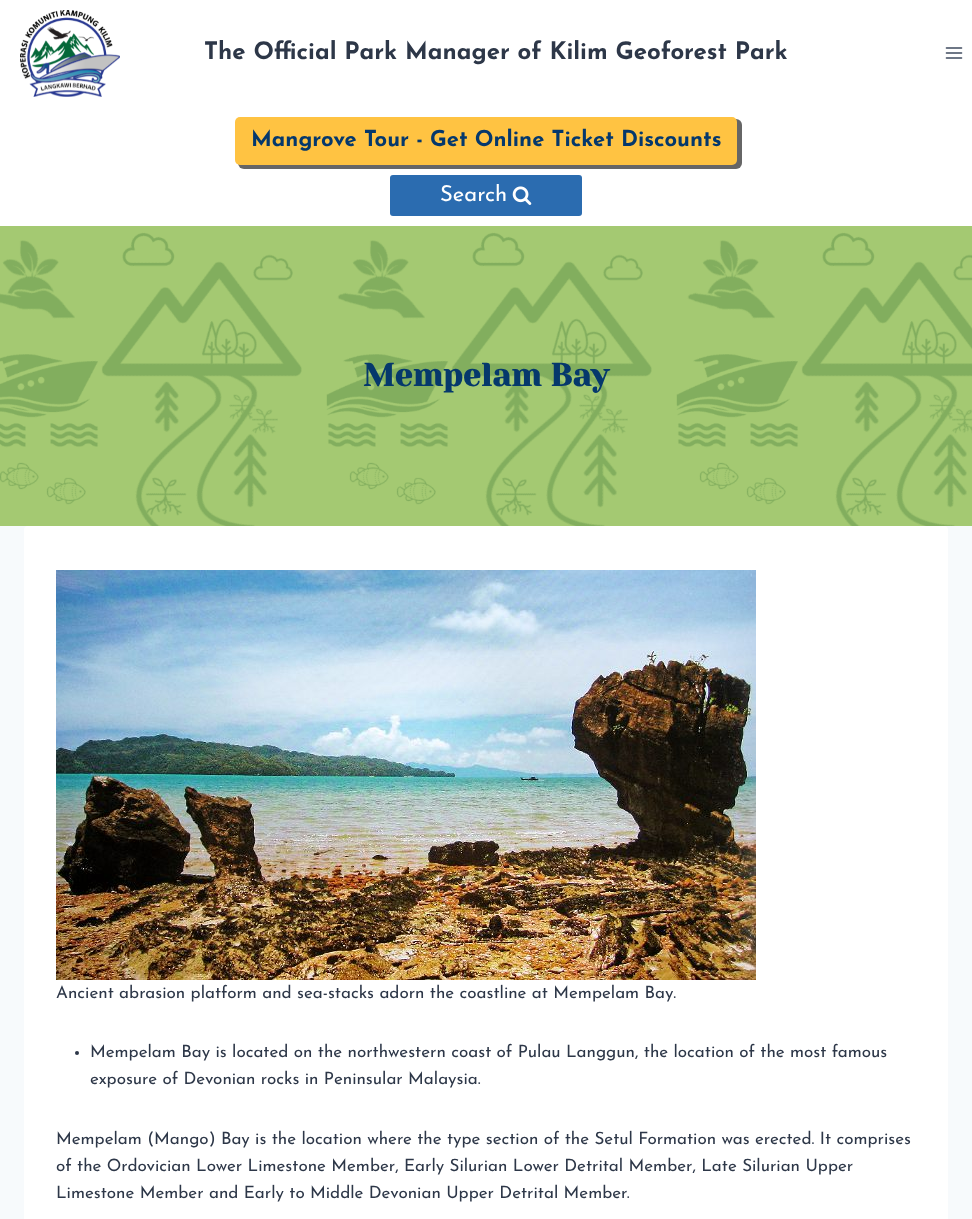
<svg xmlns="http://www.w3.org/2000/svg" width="972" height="1219">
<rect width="100%" height="100%" fill="#f7fafc"/>
<rect width="972" height="226" fill="#fff"/>
<image x="20" y="10" width="100" height="87" href="media/1.png"/>
<text x="204" y="59" style="font-family:Josefin Sans;font-size:24px;font-weight:bold;fill:#2d3748">The Official Park Manager of Kilim Geoforest Park</text>
<image x="945" y="47" width="18" height="12" href="media/2.png"/>
<rect x="238" y="119" width="504" height="50" rx="6" fill="#666" filter="blur(0.5px)"/>
<rect x="235" y="117" width="502" height="48" rx="5" fill="#ffc342"/>
<text x="251" y="146" style="font-family:Josefin Sans;font-size:22px;font-weight:bold;fill:#05386c">Mangrove Tour - Get Online Ticket Discounts</text>
<rect x="390" y="175" width="192" height="41" rx="3" fill="#2b6cb0"/>
<text x="440" y="201" style="font-family:Josefin Sans;font-size:22px;fill:#fff">Search</text>
<image x="512" y="186" width="20" height="19" href="media/3.png"/>
<rect y="226" width="972" height="300" fill="#a4c972"/>
<image x="0" y="232" width="972" height="294" href="media/4.png"/>
<text x="363" y="386" style="font-family:Yeseva One;font-size:32px;font-weight:bold;fill:#05386c">Mempelam Bay</text>
<rect x="24" y="526" width="924" height="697" rx="4" fill="#fff"/>
<image x="56" y="570" width="700" height="410" href="media/5.png"/>
<text x="56" y="998" style="font-family:Josefin Sans;font-size:17px;fill:#2d3748">Ancient abrasion platform and sea-stacks adorn the coastline at Mempelam Bay.</text>
<circle cx="77" cy="1053" r="2" fill="#2d3748"/>
<text x="90" y="1057" style="font-family:Josefin Sans;font-size:17px;fill:#2d3748">Mempelam Bay is located on the northwestern coast of Pulau Langgun, the location of the most famous</text>
<text x="90" y="1084" style="font-family:Josefin Sans;font-size:17px;fill:#2d3748">exposure of Devonian rocks in Peninsular Malaysia.</text>
<text x="56" y="1144" style="font-family:Josefin Sans;font-size:17px;fill:#2d3748">Mempelam (Mango) Bay is the location where the type section of the Setul Formation was erected. It comprises</text>
<text x="56" y="1171" style="font-family:Josefin Sans;font-size:17px;fill:#2d3748">of the Ordovician Lower Limestone Member, Early Silurian Lower Detrital Member, Late Silurian Upper</text>
<text x="56" y="1198" style="font-family:Josefin Sans;font-size:17px;fill:#2d3748">Limestone Member and Early to Middle Devonian Upper Detrital Member.</text>
</svg>
